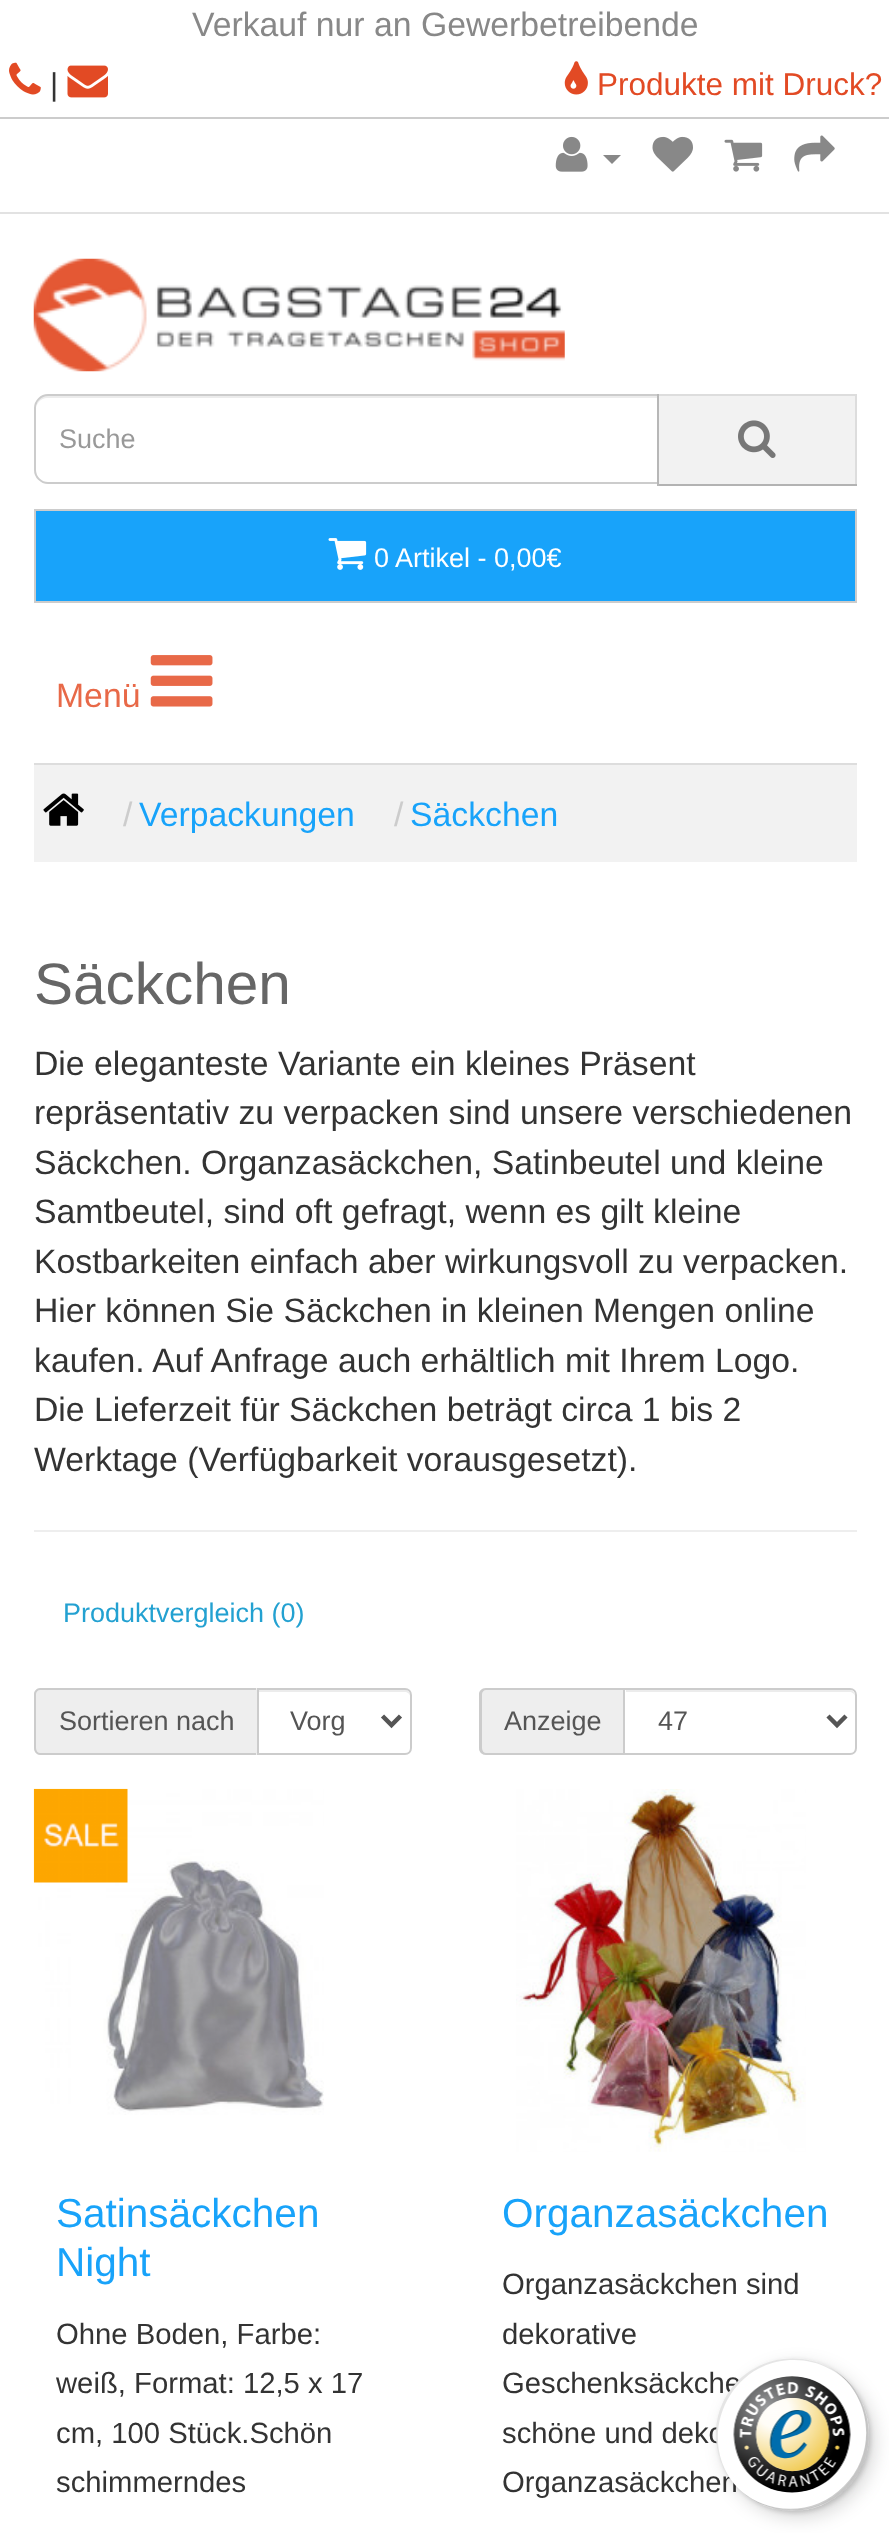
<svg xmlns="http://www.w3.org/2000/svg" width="889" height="2533">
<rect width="100%" height="100%" fill="#fff"/>
<text x="192" y="36" style="font-family:Liberation Sans;font-size:33.75px;fill:#888">Verkauf nur an Gewerbetreibende</text>
<rect y="117" width="889" height="2" fill="#ccc"/>
<image x="9" y="62" width="32" height="33" href="media/1.png"/>
<text x="50" y="95" style="font-family:Liberation Sans;font-size:31.5px;fill:#333">|</text>
<image x="67" y="65" width="41" height="33" href="media/2.png"/>
<image x="564" y="61" width="24" height="34" href="media/3.png"/>
<text x="597" y="95" style="font-family:Liberation Sans;font-size:31.5px;fill:#e24a24">Produkte mit Druck?</text>
<rect y="212" width="889" height="2" fill="#e2e2e2"/>
<image x="555" y="136" width="33" height="36" href="media/4.png"/>
<path d="M603 155h18l-9 9z" fill="#888"/>
<image x="652" y="136" width="41" height="36" href="media/5.png"/>
<image x="724" y="139" width="39" height="33" href="media/6.png"/>
<image x="794" y="135" width="41" height="37" href="media/7.png"/>
<image x="33" y="258" width="532" height="114" href="media/8.png"/>
<path d="M47 398h610v-2h-610c-8 0-11 7-11 14c0-7 5-12 11-12z" fill="#ececec"/>
<path d="M48 395h610v88h-610c-7 0-13-6-13-13v-62c0-7 6-13 13-13z" fill="none" stroke="#ccc" stroke-width="2"/>
<text x="59" y="448" style="font-family:Liberation Sans;font-size:27px;fill:#999">Suche</text>
<rect x="659" y="396" width="196" height="88" fill="#f2f2f2"/>
<rect x="657" y="394" width="200" height="2" fill="#ddd"/>
<rect x="855" y="394" width="2" height="92" fill="#ddd"/>
<rect x="657" y="484" width="200" height="2" fill="#b3b3b3"/>
<rect x="657" y="394" width="2" height="92" fill="#b7b7b7"/>
<image x="738" y="420" width="38" height="38" href="media/9.png"/>
<rect x="35" y="510" width="821" height="92" fill="#18a3fa" stroke="#ccc" stroke-width="2"/>
<image x="328" y="538" width="39" height="32" href="media/10.png"/>
<text x="374" y="567" style="font-family:Liberation Sans;font-size:27px;fill:#fff">0 Artikel - 0,00€</text>
<text x="56" y="707" style="font-family:Liberation Sans;font-size:33.75px;fill:#e86948">Menü</text>
<image x="150" y="655" width="63" height="52" href="media/11.png"/>
<rect x="34" y="765" width="823" height="97" fill="#f2f2f2"/>
<rect x="34" y="763" width="823" height="2" fill="#ddd"/>
<image x="43" y="793" width="41" height="33" href="media/12.png"/>
<text x="123" y="826" style="font-family:Liberation Sans;font-size:33.75px;fill:#ccc">/</text>
<text x="139" y="826" style="font-family:Liberation Sans;font-size:33.75px;fill:#18a3fa">Verpackungen</text>
<text x="394" y="826" style="font-family:Liberation Sans;font-size:33.75px;fill:#ccc">/</text>
<text x="410" y="826" style="font-family:Liberation Sans;font-size:33.75px;fill:#18a3fa">Säckchen</text>
<text x="34" y="1004" style="font-family:Liberation Sans;font-size:58.5px;fill:#666">Säckchen</text>
<text x="34" y="1075" style="font-family:Liberation Sans;font-size:33.75px;fill:#333">Die eleganteste Variante ein kleines Präsent</text>
<text x="34" y="1124" style="font-family:Liberation Sans;font-size:33.75px;fill:#333">repräsentativ zu verpacken sind unsere verschiedenen</text>
<text x="34" y="1174" style="font-family:Liberation Sans;font-size:33.75px;fill:#333">Säckchen. Organzasäckchen, Satinbeutel und kleine</text>
<text x="34" y="1223" style="font-family:Liberation Sans;font-size:33.75px;fill:#333">Samtbeutel, sind oft gefragt, wenn es gilt kleine</text>
<text x="34" y="1273" style="font-family:Liberation Sans;font-size:33.75px;fill:#333">Kostbarkeiten einfach aber wirkungsvoll zu verpacken.</text>
<text x="34" y="1322" style="font-family:Liberation Sans;font-size:33.75px;fill:#333">Hier können Sie Säckchen in kleinen Mengen online</text>
<text x="34" y="1372" style="font-family:Liberation Sans;font-size:33.75px;fill:#333">kaufen. Auf Anfrage auch erhältlich mit Ihrem Logo.</text>
<text x="34" y="1421" style="font-family:Liberation Sans;font-size:33.75px;fill:#333">Die Lieferzeit für Säckchen beträgt circa 1 bis 2</text>
<text x="34" y="1471" style="font-family:Liberation Sans;font-size:33.75px;fill:#333">Werktage (Verfügbarkeit vorausgesetzt).</text>
<rect x="34" y="1530" width="823" height="2" fill="#eee"/>
<text x="63" y="1622" style="font-family:Liberation Sans;font-size:27px;fill:#23a1d1">Produktvergleich (0)</text>
<path d="M41 1688h216v67h-216c-4 0-7-3-7-7v-53c0-4 3-7 7-7z" fill="#eee"/>
<path d="M40 1688h216v67h-216c-3 0-6-3-6-7v-54c0-3 3-6 6-6zm0 2h216v63h-216c-2 0-4-2-4-5v-54c0-2 2-4 4-4z" fill="#ccc" fill-rule="evenodd"/>
<text x="59" y="1730" style="font-family:Liberation Sans;font-size:27px;fill:#555">Sortieren nach</text>
<path d="M259 1692h146c2 0 5 2 5 4v-1c0-3-2-5-5-5h-146z" fill="#ececec"/>
<path d="M258 1689h147c3.5 0 6 2.5 6 6v53c0 3.5-2.5 6-6 6h-147z" fill="none" stroke="#ccc" stroke-width="2"/>
<path d="M382.5 1716l9 9l9-9" fill="none" stroke="#555" stroke-width="4.5"/>
<text x="290" y="1730" style="font-family:Liberation Sans;font-size:27px;fill:#555">Vorg</text>
<path d="M486 1688h137v67h-137c-4 0-7-3-7-7v-53c0-4 3-7 7-7z" fill="#eee"/>
<path d="M486 1688h137v67h-137c-4 0-7-3-7-7v-54c0-3 3-6 7-6zm0 2h137v63h-137c-2 0-4-2-4-5v-54c0-2 2-4 4-4z" fill="#ccc" fill-rule="evenodd"/>
<text x="504" y="1730" style="font-family:Liberation Sans;font-size:27px;fill:#555">Anzeige</text>
<path d="M626 1692h225l3 2l1 2c0-3-2-6-5-6h-224z" fill="#ececec"/>
<path d="M624 1689h226c3.5 0 6 2.5 6 6v53c0 3.5-2.5 6-6 6h-226z" fill="none" stroke="#ccc" stroke-width="2"/>
<path d="M828 1716l9 9l9-9" fill="none" stroke="#555" stroke-width="4.5"/>
<text x="658" y="1730" style="font-family:Liberation Sans;font-size:27px;fill:#555">47</text>
<image x="33" y="1788" width="291" height="327" href="media/13.png"/>
<text x="56" y="2227" style="font-family:Liberation Sans;font-size:40.5px;fill:#18a3fa">Satinsäckchen</text>
<text x="56" y="2276" style="font-family:Liberation Sans;font-size:40.5px;fill:#18a3fa">Night</text>
<text x="56" y="2344" style="font-family:Liberation Sans;font-size:29.25px;fill:#333">Ohne Boden, Farbe:</text>
<text x="56" y="2393" style="font-family:Liberation Sans;font-size:29.25px;fill:#333">weiß, Format: 12,5 x 17</text>
<text x="56" y="2443" style="font-family:Liberation Sans;font-size:29.25px;fill:#333">cm, 100 Stück.Schön</text>
<text x="56" y="2492" style="font-family:Liberation Sans;font-size:29.25px;fill:#333">schimmerndes</text>
<image x="516" y="1789" width="290" height="363" href="media/14.png"/>
<text x="502" y="2227" style="font-family:Liberation Sans;font-size:40.5px;fill:#18a3fa">Organzasäckchen</text>
<text x="502" y="2294" style="font-family:Liberation Sans;font-size:29.25px;fill:#333">Organzasäckchen sind</text>
<text x="502" y="2344" style="font-family:Liberation Sans;font-size:29.25px;fill:#333">dekorative</text>
<text x="502" y="2393" style="font-family:Liberation Sans;font-size:29.25px;fill:#333">Geschenksäckche</text>
<text x="502" y="2443" style="font-family:Liberation Sans;font-size:29.25px;fill:#333">schöne und deko</text>
<text x="502" y="2492" style="font-family:Liberation Sans;font-size:29.25px;fill:#333">Organzasäckchen</text>
<rect x="722" y="2365" width="153" height="153" rx="76.5" fill="#00000026" filter="blur(9px)"/>
<rect x="718" y="2360" width="153" height="153" rx="76.5" fill="#00000026" filter="blur(2px)"/>
<circle cx="792.5" cy="2434.5" r="76.5" fill="#fff"/>
<path d="M794 2360c25 0 47 12 62 31c-24-34-71-43-106-20c-39 26-45 80-15 114c-40-48-6-125 59-125z" fill="#0000001a"/>
<path d="M741 2491c34 31 89 25 115-14c23-34 14-81-19-105c36 29 39 82 7 114c-28 29-73 30-103 5z" fill="#00000033"/>
<path d="M752 2499c34 22 81 12 104-22c24-36 13-86-24-108c21 13 35 37 35 64c0 42-34 77-76 77c-14 0-28-4-39-11z" fill="#32323233"/>
<path d="M751 2499c34 22 82 13 105-22c24-36 13-86-24-108c36 23 46 71 22 107c-23 34-69 44-103 23z" fill="#ffffff4d"/>
<image x="733" y="2376" width="118" height="117" href="media/15.png"/>
</svg>
